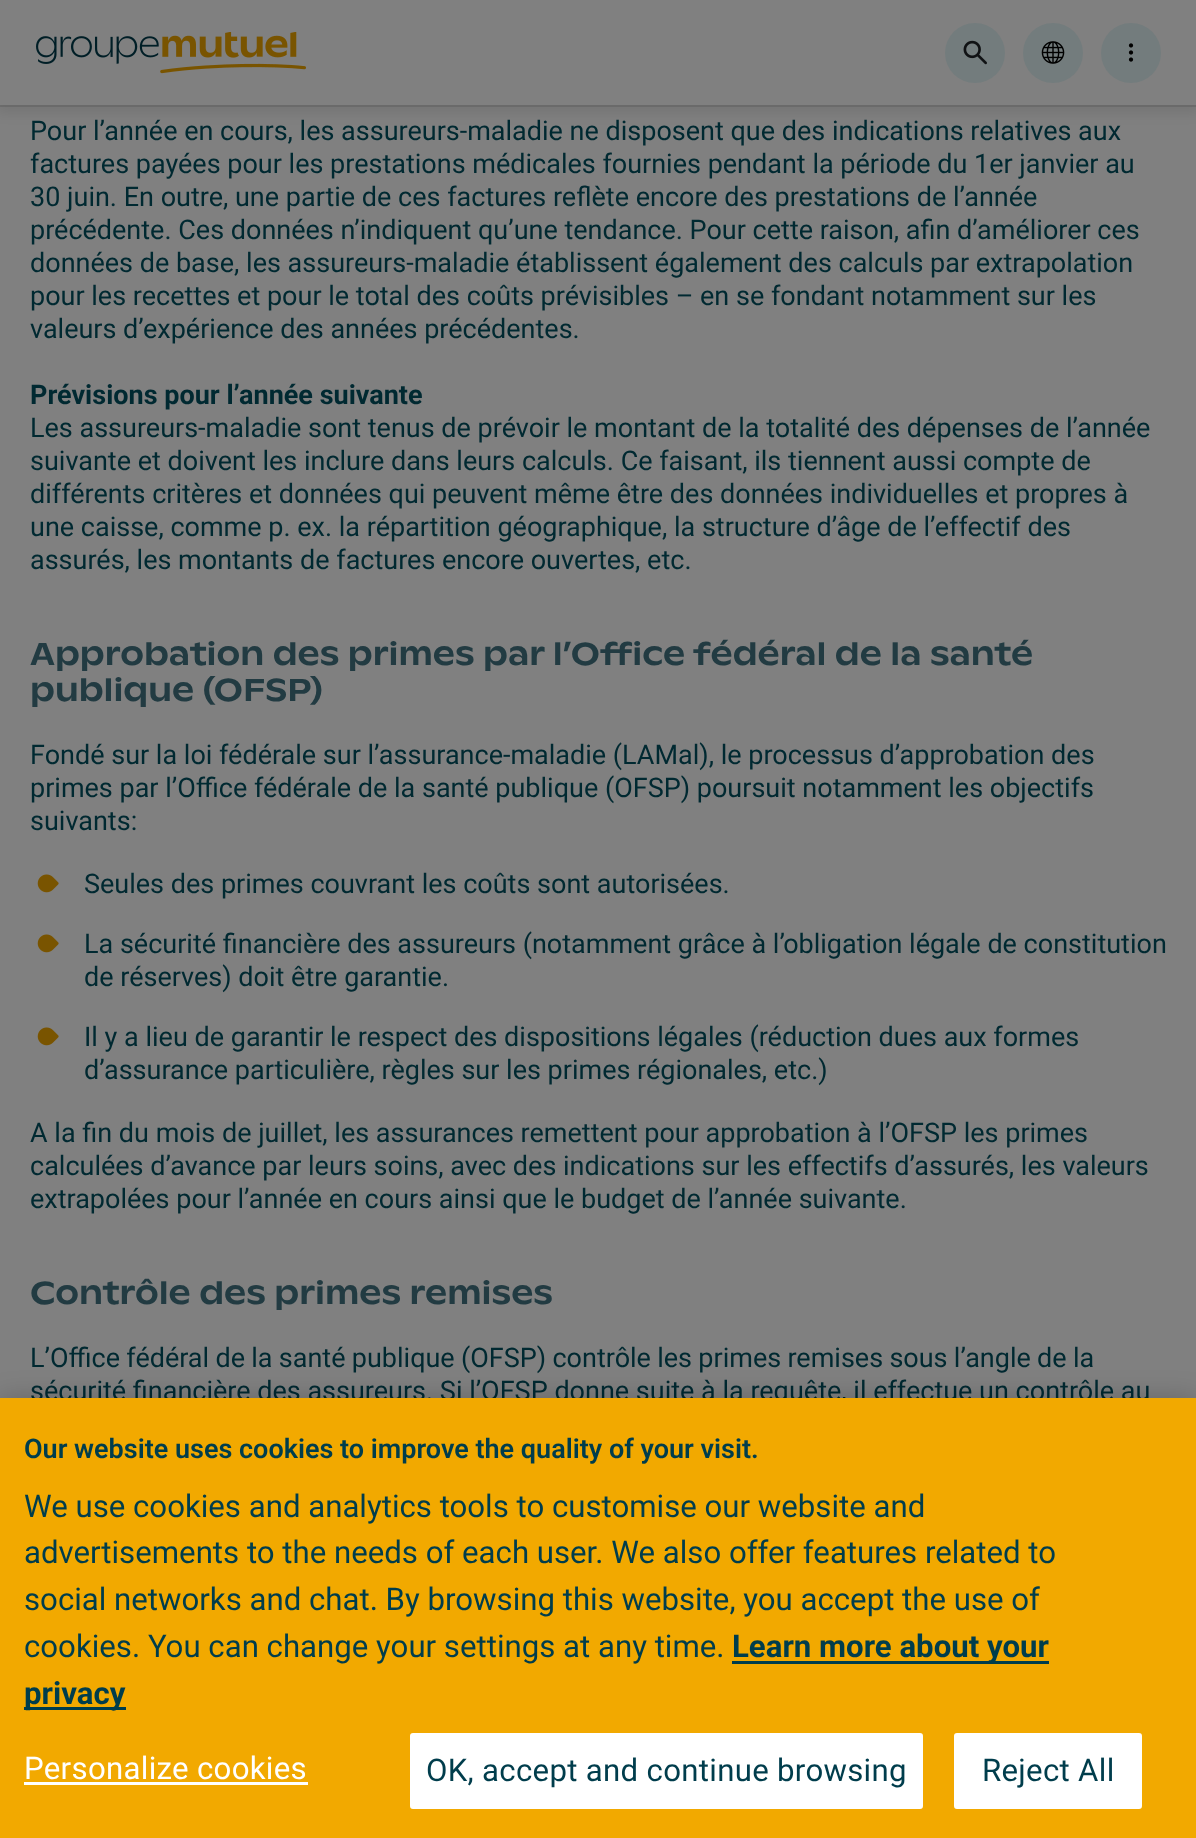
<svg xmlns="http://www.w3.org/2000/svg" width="1196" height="1838">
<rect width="100%" height="100%" fill="#808080"/>
<rect x="-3" y="3" width="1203" height="111" fill="#00000014" filter="blur(6px)"/>
<rect width="1196" height="105" fill="#808080"/>
<rect y="105" width="1196" height="2" fill="#0000001a"/>
<image x="36" y="32" width="270" height="42" href="media/1.png"/>
<circle cx="975" cy="53" r="30" fill="#737c7d"/>
<image x="963" y="40" width="24" height="25" href="media/2.png"/>
<circle cx="1053" cy="53" r="30" fill="#737c7d"/>
<image x="1041" y="41" width="24" height="23" href="media/3.png"/>
<circle cx="1131" cy="53" r="30" fill="#737c7d"/>
<image x="1128" y="43" width="6" height="19" href="media/4.png"/>
<text x="30" y="140" style="font-family:Roboto;font-size:27px;fill:#002931">Pour l’année en cours, les assureurs-maladie ne disposent que des indications relatives aux</text>
<text x="30" y="173" style="font-family:Roboto;font-size:27px;fill:#002931">factures payées pour les prestations médicales fournies pendant la période du 1er janvier au</text>
<text x="30" y="206" style="font-family:Roboto;font-size:27px;fill:#002931">30 juin. En outre, une partie de ces factures reflète encore des prestations de l’année</text>
<text x="30" y="239" style="font-family:Roboto;font-size:27px;fill:#002931">précédente. Ces données n’indiquent qu’une tendance. Pour cette raison, afin d’améliorer ces</text>
<text x="30" y="272" style="font-family:Roboto;font-size:27px;fill:#002931">données de base, les assureurs-maladie établissent également des calculs par extrapolation</text>
<text x="30" y="305" style="font-family:Roboto;font-size:27px;fill:#002931">pour les recettes et pour le total des coûts prévisibles – en se fondant notamment sur les</text>
<text x="30" y="338" style="font-family:Roboto;font-size:27px;fill:#002931">valeurs d’expérience des années précédentes.</text>
<text x="30" y="404" style="font-family:Roboto;font-size:27px;font-weight:bold;fill:#002931">Prévisions pour l’année suivante</text>
<text x="30" y="437" style="font-family:Roboto;font-size:27px;fill:#002931">Les assureurs-maladie sont tenus de prévoir le montant de la totalité des dépenses de l’année</text>
<text x="30" y="470" style="font-family:Roboto;font-size:27px;fill:#002931">suivante et doivent les inclure dans leurs calculs. Ce faisant, ils tiennent aussi compte de</text>
<text x="30" y="503" style="font-family:Roboto;font-size:27px;fill:#002931">différents critères et données qui peuvent même être des données individuelles et propres à</text>
<text x="30" y="536" style="font-family:Roboto;font-size:27px;fill:#002931">une caisse, comme p. ex. la répartition géographique, la structure d’âge de l’effectif des</text>
<text x="30" y="569" style="font-family:Roboto;font-size:27px;fill:#002931">assurés, les montants de factures encore ouvertes, etc.</text>
<text x="30" y="665" style="font-family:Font;font-size:31.5px;font-weight:500;fill:#223b42">Approbation des primes par l’Office fédéral de la santé</text>
<text x="30" y="701" style="font-family:Font;font-size:31.5px;font-weight:500;fill:#223b42">publique (OFSP)</text>
<text x="30" y="764" style="font-family:Roboto;font-size:27px;fill:#002931">Fondé sur la loi fédérale sur l’assurance-maladie (LAMal), le processus d’approbation des</text>
<text x="30" y="797" style="font-family:Roboto;font-size:27px;fill:#002931">primes par l’Office fédérale de la santé publique (OFSP) poursuit notamment les objectifs</text>
<text x="30" y="830" style="font-family:Roboto;font-size:27px;fill:#002931">suivants:</text>
<image x="37" y="874" width="22" height="19" href="media/5.png"/>
<text x="84" y="893" style="font-family:Roboto;font-size:27px;fill:#002931">Seules des primes couvrant les coûts sont autorisées.</text>
<image x="37" y="934" width="22" height="19" href="media/5.png"/>
<text x="84" y="953" style="font-family:Roboto;font-size:27px;fill:#002931">La sécurité financière des assureurs (notamment grâce à l’obligation légale de constitution</text>
<text x="84" y="986" style="font-family:Roboto;font-size:27px;fill:#002931">de réserves) doit être garantie.</text>
<image x="37" y="1027" width="22" height="19" href="media/5.png"/>
<text x="84" y="1046" style="font-family:Roboto;font-size:27px;fill:#002931">Il y a lieu de garantir le respect des dispositions légales (réduction dues aux formes</text>
<text x="84" y="1079" style="font-family:Roboto;font-size:27px;fill:#002931">d’assurance particulière, règles sur les primes régionales, etc.)</text>
<text x="30" y="1142" style="font-family:Roboto;font-size:27px;fill:#002931">A la fin du mois de juillet, les assurances remettent pour approbation à l’OFSP les primes</text>
<text x="30" y="1175" style="font-family:Roboto;font-size:27px;fill:#002931">calculées d’avance par leurs soins, avec des indications sur les effectifs d’assurés, les valeurs</text>
<text x="30" y="1208" style="font-family:Roboto;font-size:27px;fill:#002931">extrapolées pour l’année en cours ainsi que le budget de l’année suivante.</text>
<text x="30" y="1304" style="font-family:Font;font-size:31.5px;font-weight:500;fill:#223b42">Contrôle des primes remises</text>
<text x="30" y="1367" word-spacing="-0.4" style="font-family:Roboto;font-size:27px;fill:#002931">L’Office fédéral de la santé publique (OFSP) contrôle les primes remises sous l’angle de la</text>
<text x="30" y="1400" style="font-family:Roboto;font-size:27px;fill:#002931">sécurité financière des assureurs. Si l’OFSP donne suite à la requête, il effectue un contrôle au</text>
<rect y="1398" width="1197" height="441" fill="#00000033" filter="blur(13.5px)"/>
<rect y="1398" width="1196" height="440" fill="#f2a900"/>
<text x="24" y="1458" style="font-family:Roboto;font-size:27px;font-weight:600;fill:#003d4c">Our website uses cookies to improve the quality of your visit.</text>
<text x="24" y="1517" style="font-family:Roboto;font-size:31.2px;fill:#003d4c">We use cookies and analytics tools to customise our website and</text>
<text x="24" y="1563" style="font-family:Roboto;font-size:31.2px;fill:#003d4c">advertisements to the needs of each user. We also offer features related to</text>
<text x="24" y="1610" style="font-family:Roboto;font-size:31.2px;fill:#003d4c">social networks and chat. By browsing this website, you accept the use of</text>
<text x="24" y="1657" style="font-family:Roboto;font-size:31.2px;fill:#003d4c">cookies. You can change your settings at any time.</text>
<rect x="732" y="1661" width="317" height="3" fill="#003d4c"/>
<text x="732" y="1657" style="font-family:Roboto;font-size:31.2px;font-weight:bold;fill:#003d4c">Learn more about your</text>
<rect x="24" y="1707" width="102" height="3" fill="#003d4c"/>
<text x="24" y="1704" style="font-family:Roboto;font-size:31.2px;font-weight:bold;fill:#003d4c">privacy</text>
<text x="24" y="1779" style="font-family:Roboto;font-size:31.2px;letter-spacing:0.3px;fill:#fff">Personalize cookies</text>
<rect x="24" y="1782" width="284" height="3" fill="#fff"/>
<rect x="411" y="1734" width="511" height="74" rx="2" fill="#fff" stroke="#fff" stroke-width="2"/>
<text x="426" y="1781" style="font-family:Roboto;font-size:31.2px;letter-spacing:0.3px;fill:#003d4c">OK, accept and continue browsing</text>
<rect x="955" y="1734" width="186" height="74" rx="2" fill="#fff" stroke="#fff" stroke-width="2"/>
<text x="982" y="1781" style="font-family:Roboto;font-size:31.2px;letter-spacing:0.3px;fill:#003d4c">Reject All</text>
</svg>
